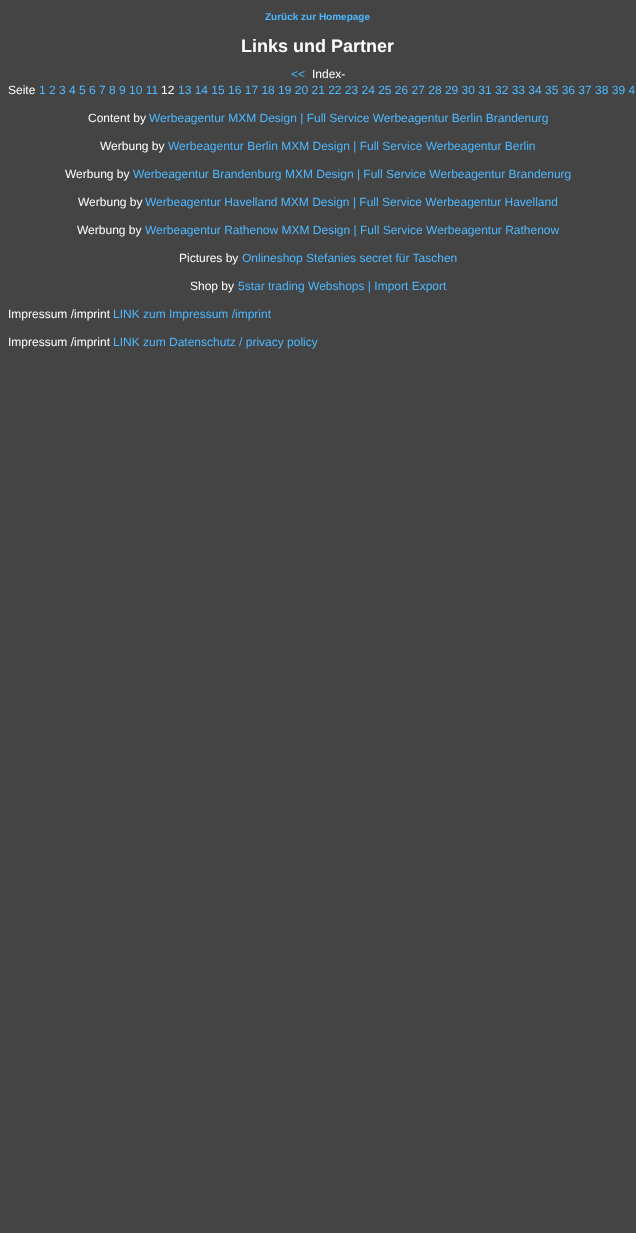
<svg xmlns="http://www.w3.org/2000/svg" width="636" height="1233">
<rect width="100%" height="100%" fill="#444"/>
<text x="265" y="20" style="font-family:Liberation Sans;font-size:10px;font-weight:bold;fill:#4db8ff">Zurück zur Homepage</text>
<text x="241" y="52" style="font-family:Liberation Sans;font-size:18px;font-weight:bold;fill:#fff">Links und Partner</text>
<text x="291" y="78" style="font-family:Liberation Sans;font-size:12px;fill:#4db8ff">&lt;&lt;</text>
<text x="312" y="78" style="font-family:Liberation Sans;font-size:12px;fill:#fff">Index-</text>
<text x="8" y="94" style="font-family:Liberation Sans;font-size:12px;fill:#fff">Seite</text>
<text x="39" y="94" style="font-family:Liberation Sans;font-size:12px;fill:#4db8ff">1 2 3 4 5 6 7 8 9 10 11</text>
<text x="161" y="94" style="font-family:Liberation Sans;font-size:12px;fill:#fff">12</text>
<text x="178" y="94" style="font-family:Liberation Sans;font-size:12px;fill:#4db8ff">13 14 15 16 17 18 19 20 21 22 23 24 25 26 27 28 29 30 31 32 33 34 35 36 37 38 39 4</text>
<text x="88" y="122" style="font-family:Liberation Sans;font-size:12px;fill:#fff">Content by</text>
<text x="149" y="122" style="font-family:Liberation Sans;font-size:12px;fill:#4db8ff">Werbeagentur MXM Design | Full Service Werbeagentur Berlin Brandenurg</text>
<text x="100" y="150" style="font-family:Liberation Sans;font-size:12px;fill:#fff">Werbung by</text>
<text x="168" y="150" style="font-family:Liberation Sans;font-size:12px;fill:#4db8ff">Werbeagentur Berlin MXM Design | Full Service Werbeagentur Berlin</text>
<text x="65" y="178" style="font-family:Liberation Sans;font-size:12px;fill:#fff">Werbung by</text>
<text x="133" y="178" style="font-family:Liberation Sans;font-size:12px;fill:#4db8ff">Werbeagentur Brandenburg MXM Design | Full Service Werbeagentur Brandenurg</text>
<text x="78" y="206" style="font-family:Liberation Sans;font-size:12px;fill:#fff">Werbung by</text>
<text x="145" y="206" style="font-family:Liberation Sans;font-size:12px;fill:#4db8ff">Werbeagentur Havelland MXM Design | Full Service Werbeagentur Havelland</text>
<text x="77" y="234" style="font-family:Liberation Sans;font-size:12px;fill:#fff">Werbung by</text>
<text x="145" y="234" style="font-family:Liberation Sans;font-size:12px;fill:#4db8ff">Werbeagentur Rathenow MXM Design | Full Service Werbeagentur Rathenow</text>
<text x="179" y="262" style="font-family:Liberation Sans;font-size:12px;fill:#fff">Pictures by</text>
<text x="242" y="262" style="font-family:Liberation Sans;font-size:12px;fill:#4db8ff">Onlineshop Stefanies secret für Taschen</text>
<text x="190" y="290" style="font-family:Liberation Sans;font-size:12px;fill:#fff">Shop by</text>
<text x="238" y="290" style="font-family:Liberation Sans;font-size:12px;fill:#4db8ff">5star trading Webshops | Import Export</text>
<text x="8" y="318" style="font-family:Liberation Sans;font-size:12px;fill:#fff">Impressum /imprint</text>
<text x="113" y="318" style="font-family:Liberation Sans;font-size:12px;fill:#4db8ff">LINK zum Impressum /imprint</text>
<text x="8" y="346" style="font-family:Liberation Sans;font-size:12px;fill:#fff">Impressum /imprint</text>
<text x="113" y="346" style="font-family:Liberation Sans;font-size:12px;fill:#4db8ff">LINK zum Datenschutz / privacy policy</text>
</svg>
